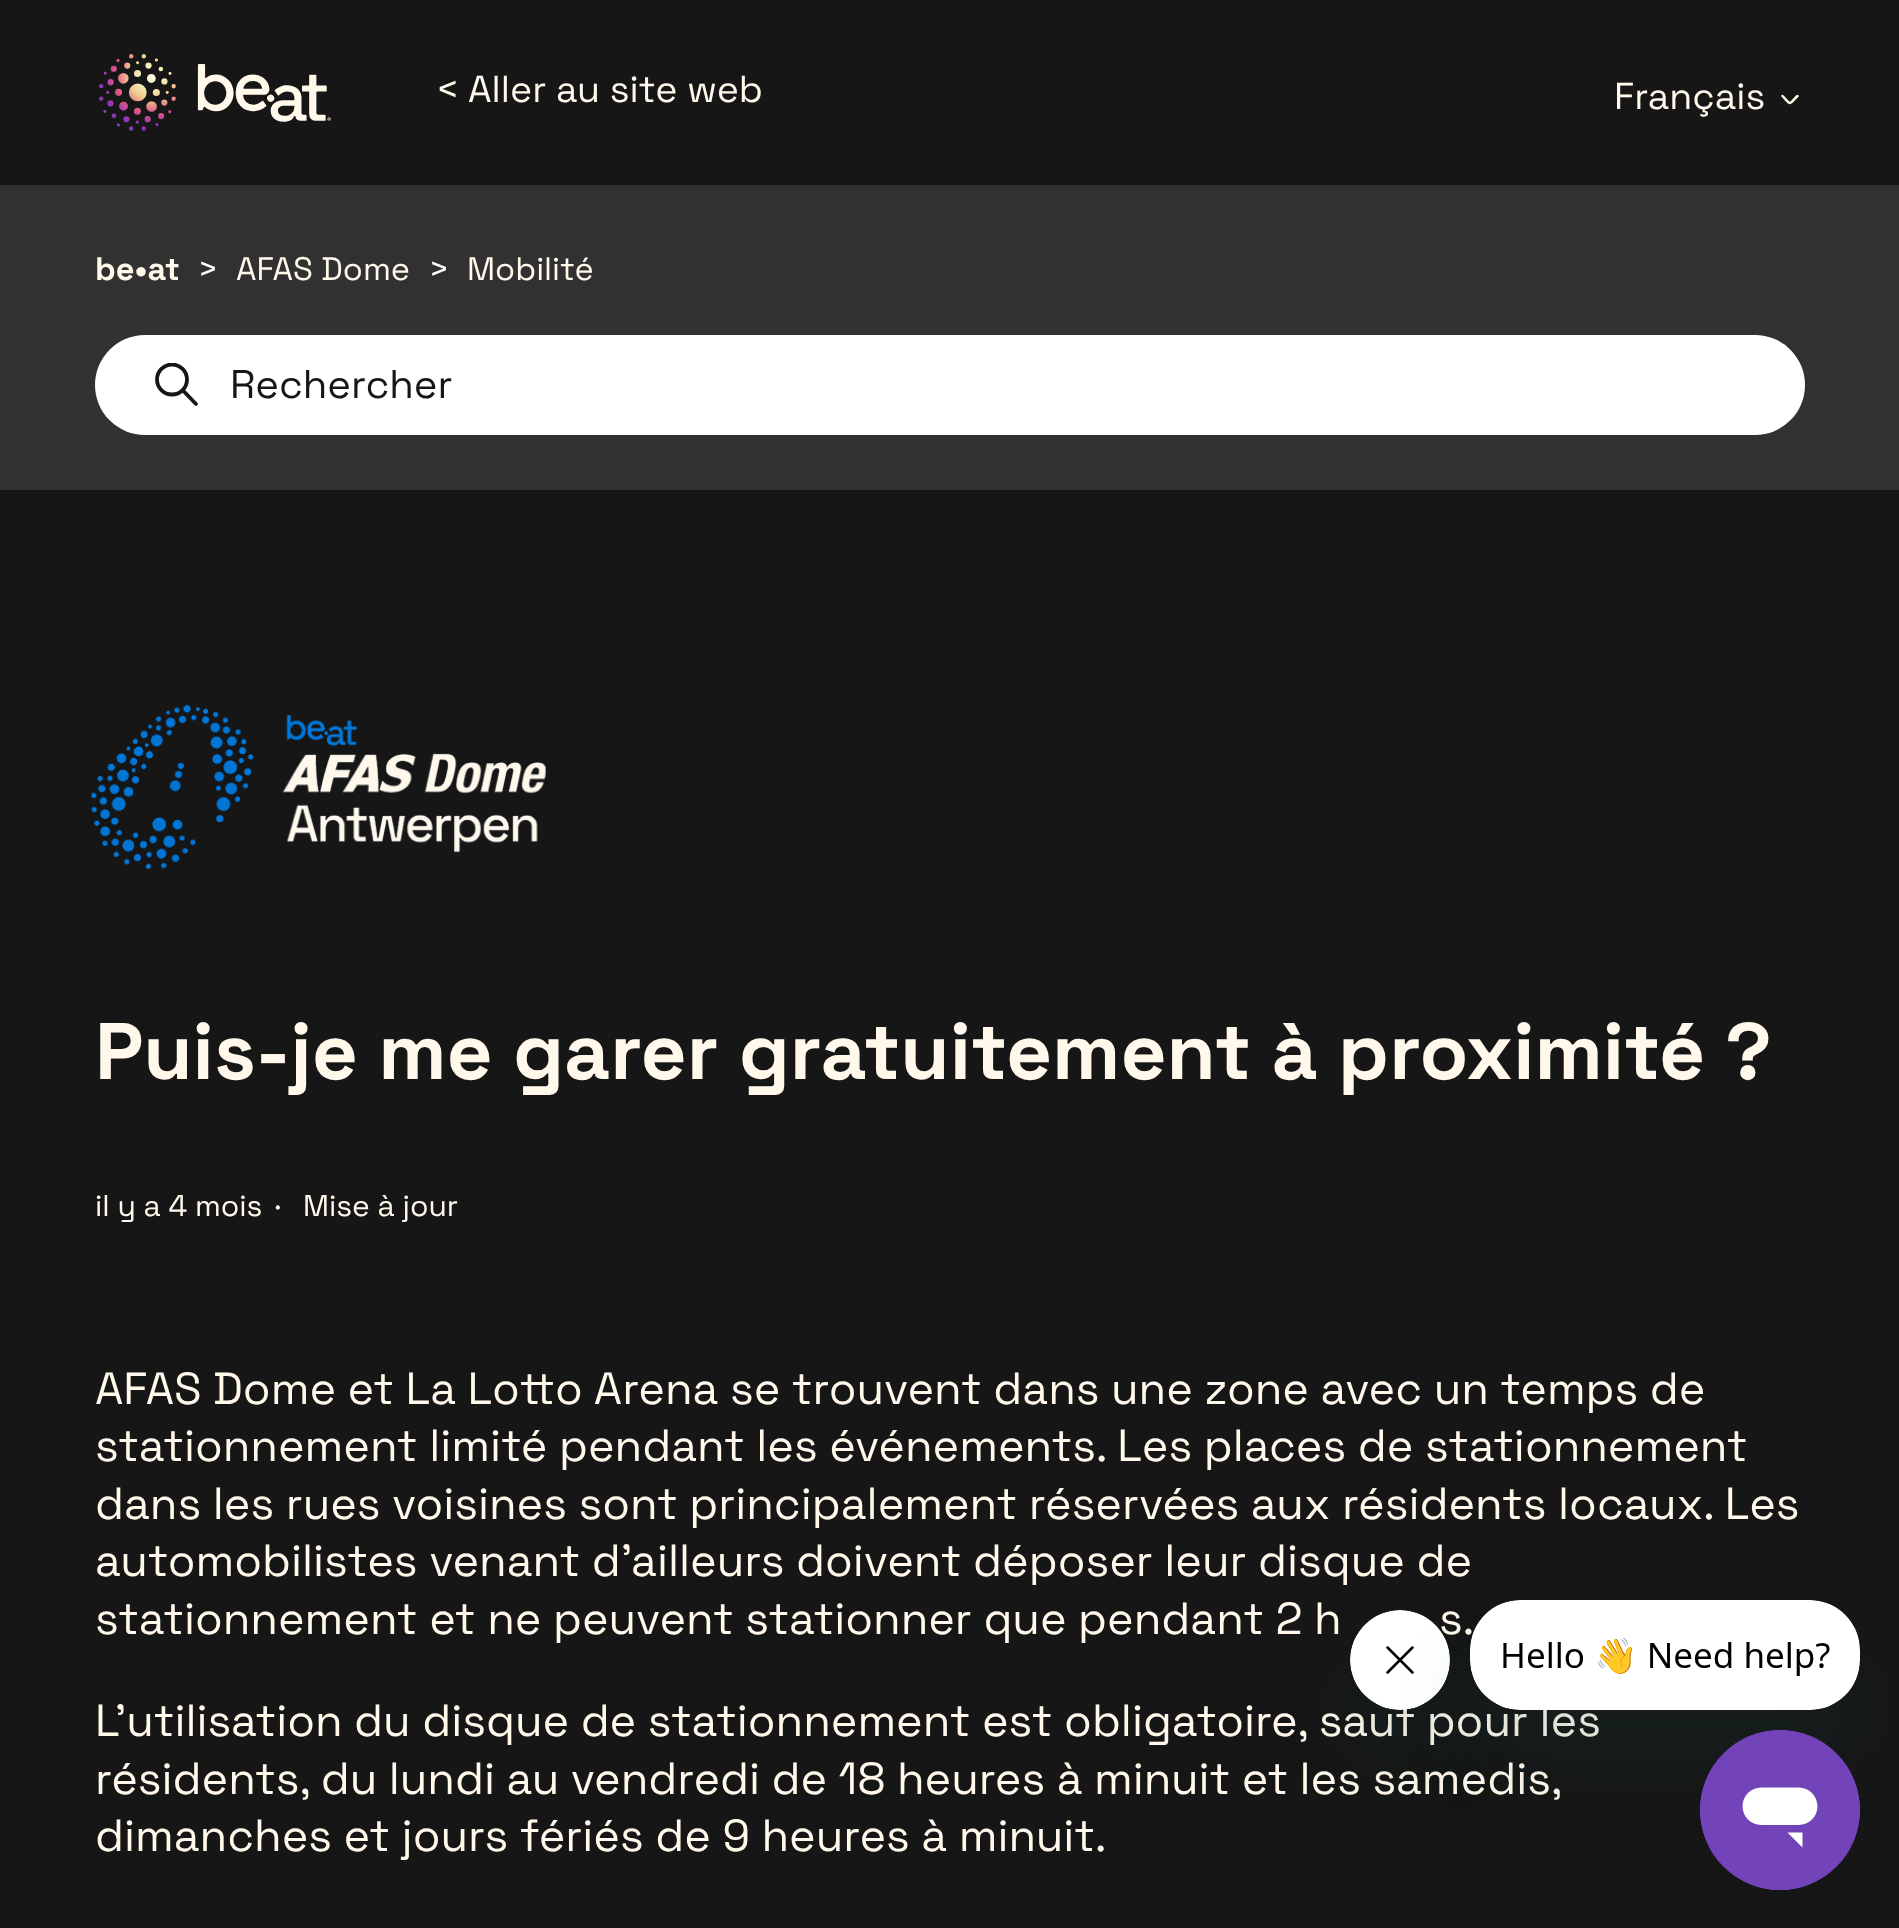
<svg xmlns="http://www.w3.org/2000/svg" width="1899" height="1928">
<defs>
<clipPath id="clip1"><rect x="155" y="363" width="45" height="45"/></clipPath>
</defs>
<rect width="100%" height="100%" fill="#161616"/>
<image x="99" y="54" width="232" height="77" href="media/1.png"/>
<text x="436" y="102" style="font-family:Space Grotesk;font-size:37.5px;fill:#fff8eb">&lt;</text>
<text x="468" y="102" style="font-family:Space Grotesk;font-size:37.5px;fill:#fff8eb">Aller au site web</text>
<text x="1614" y="109" style="font-family:Space Grotesk;font-size:37.5px;fill:#fff8eb">Français</text>
<path d="M1782.5 96c9 9.5 5.5 9 15 0" fill="none" stroke="#fff8eb" stroke-width="2.5" stroke-linecap="round"/>
<rect y="185" width="1899" height="305" fill="#313131"/>
<text x="95" y="280" style="font-family:Space Grotesk;font-size:32.5px;font-weight:bold;fill:#fff8eb">be•at</text>
<text x="198" y="280" style="font-family:Space Grotesk;font-size:32.5px;fill:#fff">&gt;</text>
<text x="236" y="280" style="font-family:Space Grotesk;font-size:32.5px;fill:#fff8eb">AFAS Dome</text>
<text x="429" y="280" style="font-family:Space Grotesk;font-size:32.5px;fill:#fff">&gt;</text>
<text x="467" y="280" style="font-family:Space Grotesk;font-size:32.5px;fill:#fff8eb">Mobilité</text>
<rect x="95" y="335" width="1710" height="100" rx="50" fill="#fff"/>
<g clip-path="url(#clip1)">
<circle cx="172" cy="379.5" r="15" fill="none" stroke="#161616" stroke-width="3.8"/>
</g>
<path d="M196 404l-13-13.5" fill="none" stroke="#161616" stroke-width="3.8" stroke-linecap="round"/>
<text x="230" y="398" style="font-family:Space Grotesk;font-size:40px;fill:#161616">Rechercher</text>
<image x="91" y="705" width="455" height="164" href="media/2.png"/>
<text x="95" y="1079" style="font-family:Space Grotesk;font-size:80px;font-weight:bold;fill:#fff8eb">Puis-je me garer gratuitement à proximité ?</text>
<text x="95" y="1216" style="font-family:Space Grotesk;font-size:30px;fill:#fff8eb">il y a 4 mois</text>
<text x="275" y="1216" style="font-family:Space Grotesk;font-size:30px;fill:#fff8eb">·</text>
<text x="303" y="1216" style="font-family:Space Grotesk;font-size:30px;fill:#fff8eb">Mise à jour</text>
<text x="95" y="1404" style="font-family:Space Grotesk;font-size:45px;fill:#fff8eb">AFAS Dome et La Lotto Arena se trouvent dans une zone avec un temps de</text>
<text x="95" y="1461" style="font-family:Space Grotesk;font-size:45px;fill:#fff8eb">stationnement limité pendant les événements. Les places de stationnement</text>
<text x="95" y="1519" style="font-family:Space Grotesk;font-size:45px;fill:#fff8eb">dans les rues voisines sont principalement réservées aux résidents locaux. Les</text>
<text x="95" y="1576" style="font-family:Space Grotesk;font-size:45px;fill:#fff8eb">automobilistes venant d'ailleurs doivent déposer leur disque de</text>
<text x="95" y="1634" style="font-family:Space Grotesk;font-size:45px;fill:#fff8eb">stationnement et ne peuvent stationner que pendant 2 h</text>
<text x="1439" y="1634" style="font-family:Space Grotesk;font-size:45px;fill:#fff8eb">s.</text>
<text x="95" y="1736" style="font-family:Space Grotesk;font-size:45px;fill:#fff8eb">L'utilisation du disque de stationnement est obligatoire, sauf pour les</text>
<text x="95" y="1794" word-spacing="-0.1" style="font-family:Space Grotesk;font-size:45px;fill:#fff8eb">résidents, du lundi au vendredi de 18 heures à minuit et les samedis,</text>
<text x="95" y="1851" style="font-family:Space Grotesk;font-size:45px;fill:#fff8eb">dimanches et jours fériés de 9 heures à minuit.</text>
<rect x="1350" y="1660" width="100" height="100" rx="50" fill="#17494d26" filter="blur(37.5px)"/>
<image x="1350" y="1610" width="100" height="100" href="media/4.png"/>
<rect x="1470" y="1650" width="390" height="110" rx="50" fill="#17494d26" filter="blur(37.5px)"/>
<image x="1470" y="1600" width="390" height="110" href="media/3.png"/>
<image x="1700" y="1730" width="160" height="160" href="media/5.png"/>
</svg>
